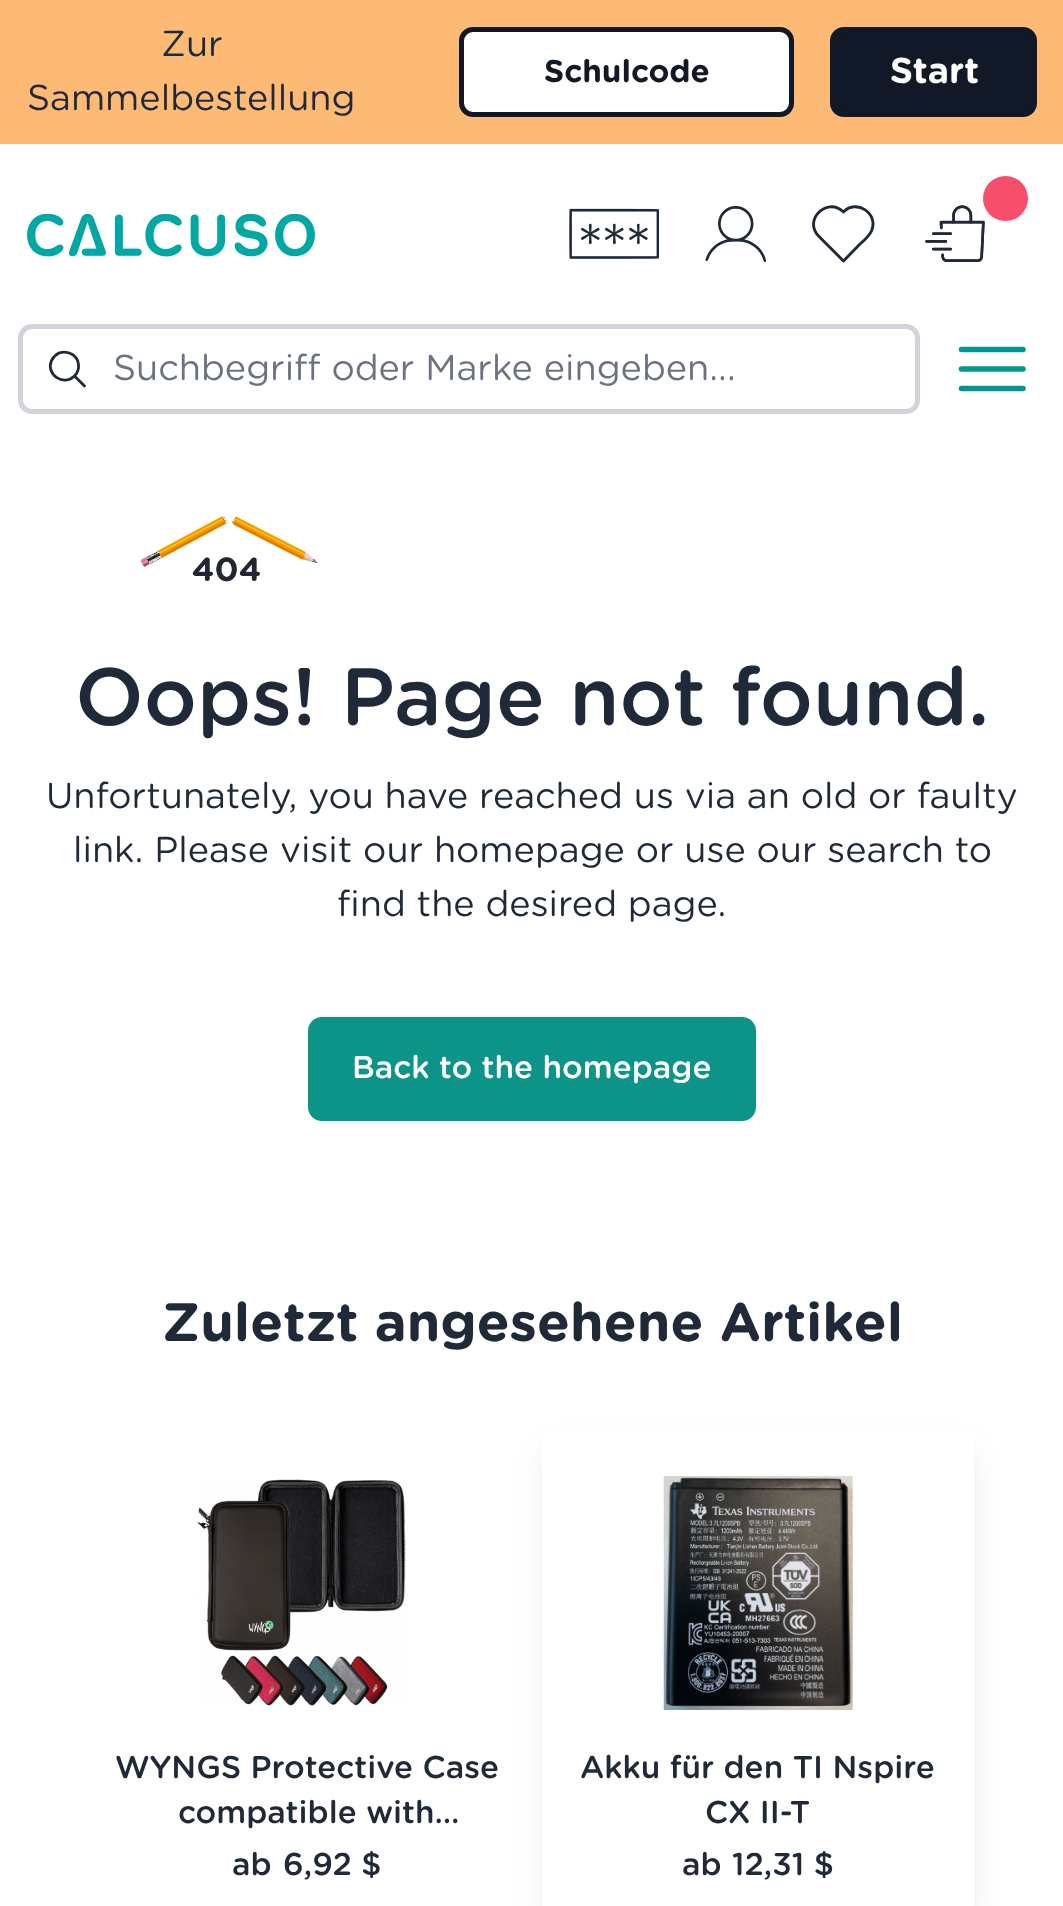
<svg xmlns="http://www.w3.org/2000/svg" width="1063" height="1906">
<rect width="100%" height="100%" fill="#fff"/>
<rect width="1063" height="144" fill="#fdba74"/>
<text x="161" y="56" style="font-family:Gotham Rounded;font-size:36px;fill:#1f2937">Zur</text>
<text x="27" y="110" style="font-family:Gotham Rounded;font-size:36px;fill:#1f2937">Sammelbestellung</text>
<rect x="461.5" y="29.5" width="330" height="85" rx="11.5" fill="#fff" stroke="#111827" stroke-width="5"/>
<text x="544" y="82" style="font-family:Gotham Rounded;font-size:31.5px;font-weight:bold;fill:#111827">Schulcode</text>
<rect x="832.5" y="29.5" width="202" height="85" rx="11.5" fill="#111827" stroke="#111827" stroke-width="5"/>
<text x="890" y="83" style="font-family:Gotham Rounded;font-size:36px;font-weight:bold;fill:#fff">Start</text>
<image x="925" y="205" width="60" height="57" href="media/1.png"/>
<circle cx="1005.5" cy="198.5" r="22.5" fill="#f74e6c"/>
<image x="27" y="214" width="288" height="43" href="media/2.png"/>
<image x="569" y="208" width="90" height="51" href="media/3.png"/>
<image x="705" y="206" width="61" height="56" href="media/4.png"/>
<path d="M819 236.5c-16.5-16 8-40.5 24.5-24.5c13-13.5 35.5 1.5 28 19c-2.5 5.5-7.5 9.5-12 13.5l-16 16.5z" fill="none" stroke="#1f2937" stroke-width="2.9" stroke-linecap="round" stroke-linejoin="round"/>
<rect x="20.5" y="326.5" width="897" height="85" rx="11.5" fill="none" stroke="#d1d5db" stroke-width="5"/>
<path d="M84.5 386l-10-10m0 0c6-6 5.5-16.5-2-21.5c-4-2.5-9-3-13.5-1.5c-3 1.5-6 4.5-7.5 7.5c-6 14.5 12.5 26 23 15.5z" fill="none" stroke="#1f2937" stroke-width="2.8" stroke-linecap="round" stroke-linejoin="round"/>
<text x="113" y="380" style="font-family:Gotham Rounded;font-size:36px;fill:#6b7280">Suchbegriff oder Marke eingeben...</text>
<path d="M961.5 349.5h61.5m-61.5 19.5h61.5m-61.5 19.5h61.5" fill="none" stroke="#009793" stroke-width="5.6" stroke-linecap="round" stroke-linejoin="round"/>
<image x="140" y="516" width="178" height="66" href="media/5.png"/>
<text x="75" y="725" style="font-family:Gotham Rounded;font-size:81px;font-weight:500;fill:#1f2937">Oops! Page not found.</text>
<text x="46" y="808" style="font-family:Gotham Rounded;font-size:36px;fill:#1f2937">Unfortunately, you have reached us via an old or faulty</text>
<text x="73" y="862" style="font-family:Gotham Rounded;font-size:36px;fill:#1f2937">link. Please visit our homepage or use our search to</text>
<text x="337" y="916" style="font-family:Gotham Rounded;font-size:36px;fill:#1f2937">find the desired page.</text>
<rect x="308" y="1017" width="448" height="104" rx="14" fill="#0d9488"/>
<text x="352" y="1078" style="font-family:Gotham Rounded;font-size:31.5px;font-weight:500;fill:#fff">Back to the homepage</text>
<text x="162" y="1341" style="font-family:Gotham Rounded;font-size:54px;font-weight:bold;fill:#1f2937">Zuletzt angesehene Artikel</text>
<image x="197" y="1479" width="209" height="227" href="media/6.png"/>
<rect x="549" y="1451" width="419" height="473" fill="#0000001a" filter="blur(17px)"/>
<text x="115" y="1778" style="font-family:Gotham Rounded;font-size:31.5px;font-weight:500;fill:#1f2937">WYNGS Protective Case</text>
<text x="178" y="1823" style="font-family:Gotham Rounded;font-size:31.5px;font-weight:500;fill:#1f2937">compatible with…</text>
<text x="232" y="1875" style="font-family:Gotham Rounded;font-size:31.5px;font-weight:500;fill:#1f2937">ab</text>
<text x="283" y="1875" style="font-family:Gotham Rounded;font-size:31.5px;font-weight:500;fill:#1f2937">6,92 $</text>
<rect x="542" y="1429" width="432" height="477" fill="#fff"/>
<image x="663" y="1476" width="190" height="234" href="media/7.png"/>
<text x="580" y="1778" style="font-family:Gotham Rounded;font-size:31.5px;font-weight:500;fill:#1f2937">Akku für den TI Nspire</text>
<text x="705" y="1823" style="font-family:Gotham Rounded;font-size:31.5px;font-weight:500;fill:#1f2937">CX II-T</text>
<text x="682" y="1875" style="font-family:Gotham Rounded;font-size:31.5px;font-weight:500;fill:#1f2937">ab</text>
<text x="732" y="1875" style="font-family:Gotham Rounded;font-size:31.5px;font-weight:500;fill:#1f2937">12,31 $</text>
</svg>
